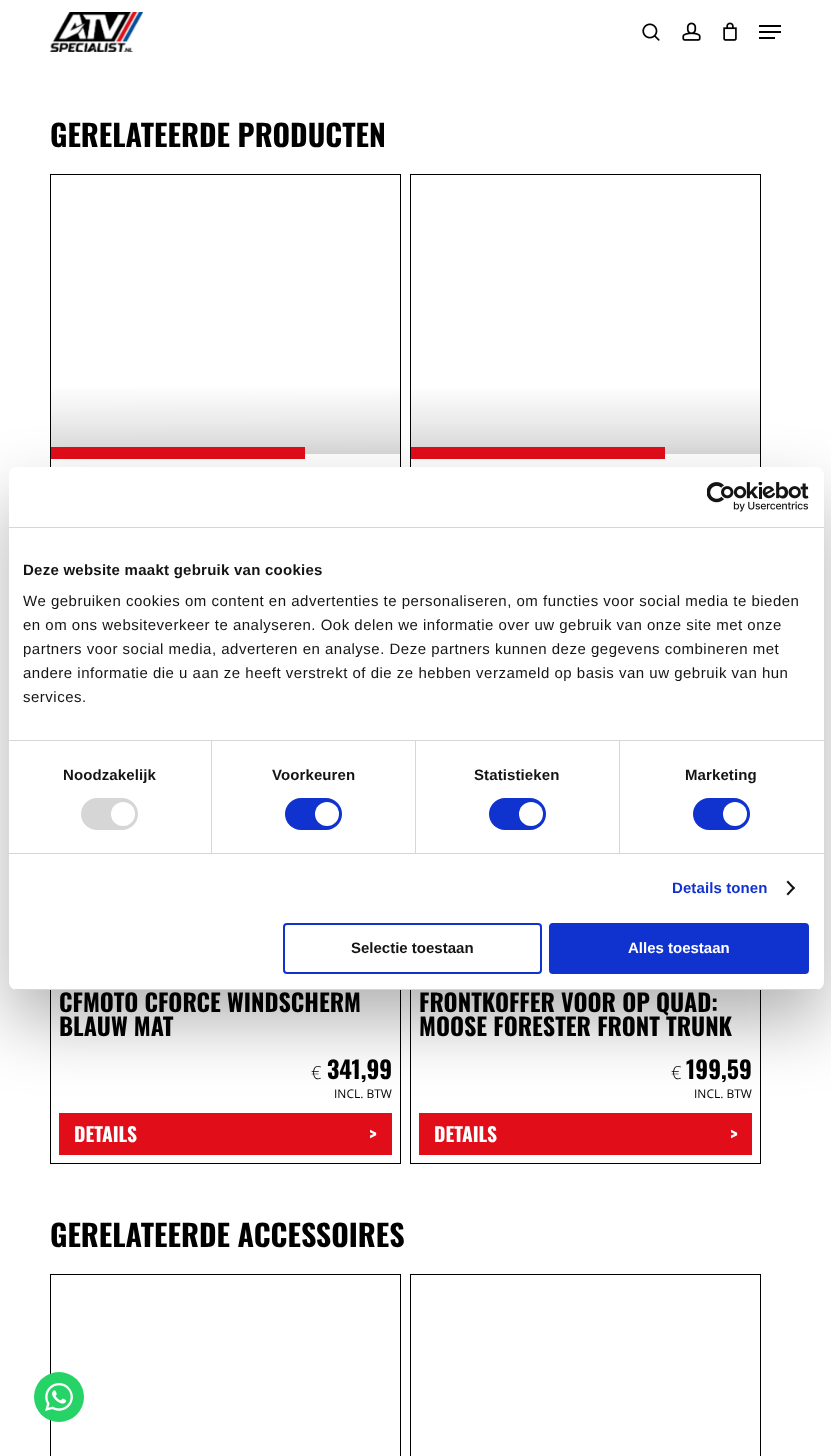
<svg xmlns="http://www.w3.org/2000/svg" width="831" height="1456">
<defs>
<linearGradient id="g1" gradientUnits="userSpaceOnUse" x1="225" y1="175" x2="226" y2="454"><stop offset="0.75" stop-color="#fff"/><stop offset="1" stop-color="#d9d9d9"/></linearGradient>
<linearGradient id="g2" gradientUnits="userSpaceOnUse" x1="586" y1="175" x2="586" y2="454"><stop offset="0.75" stop-color="#fff"/><stop offset="1" stop-color="#d9d9d9"/></linearGradient>
<clipPath id="clip1"><rect x="9" y="467" width="815" height="523" rx="8"/></clipPath>
</defs>
<rect width="100%" height="100%" fill="#fff"/>
<image x="49" y="12" width="94" height="40" href="media/1.png"/>
<image x="642" y="23" width="18" height="18" href="media/2.png"/>
<image x="682" y="22" width="19" height="19" href="media/3.png"/>
<image x="723" y="22" width="14" height="19" href="media/4.png"/>
<rect x="759" y="25" width="22" height="2" fill="#000"/>
<rect x="759" y="37" width="16" height="2" fill="#000"/>
<rect x="759" y="31" width="22" height="2" fill="#000"/>
<text x="50" y="147" style="font-family:Oswald;font-size:30px;font-weight:bold;fill:#000">GERELATEERDE PRODUCTEN</text>
<rect x="50.5" y="174.5" width="350" height="493" fill="none" stroke="#000"/>
<rect x="51" y="388" width="349" height="66" fill="url(#g1)"/>
<rect x="51" y="447" width="254" height="12" fill="#e10d19"/>
<rect x="410.5" y="174.5" width="350" height="493" fill="none" stroke="#000"/>
<rect x="411" y="389" width="349" height="65" fill="url(#g2)"/>
<rect x="411" y="447" width="254" height="12" fill="#e10d19"/>
<rect x="50.5" y="693.5" width="350" height="470" fill="none" stroke="#000"/>
<text x="59" y="1012" style="font-family:Oswald;font-size:24px;font-weight:bold;fill:#000">CFMOTO CFORCE WINDSCHERM</text>
<text x="59" y="1036" style="font-family:Oswald;font-size:24px;font-weight:bold;fill:#000">BLAUW MAT</text>
<text x="311" y="1079" style="font-family:Open Sans;font-size:18px;font-weight:300;fill:#000">€</text>
<text x="327" y="1079" style="font-family:Oswald;font-size:24px;font-weight:bold;fill:#000">341,99</text>
<text x="334" y="1098" style="font-family:Open Sans;font-size:12px;fill:#000">INCL. BTW</text>
<rect x="59" y="1113" width="333" height="42" fill="#e10d19"/>
<text x="74" y="1142" style="font-family:Oswald;font-size:19.5px;font-weight:bold;fill:#fff">DETAILS</text>
<text x="369" y="1142" style="font-family:Oswald;font-size:19.5px;font-weight:bold;fill:#fff">&gt;</text>
<rect x="410.5" y="693.5" width="350" height="470" fill="none" stroke="#000"/>
<text x="419" y="1012" style="font-family:Oswald;font-size:24px;font-weight:bold;fill:#000">FRONTKOFFER VOOR OP QUAD:</text>
<text x="419" y="1036" style="font-family:Oswald;font-size:24px;font-weight:bold;fill:#000">MOOSE FORESTER FRONT TRUNK</text>
<text x="671" y="1079" style="font-family:Open Sans;font-size:18px;font-weight:300;fill:#000">€</text>
<text x="686" y="1079" style="font-family:Oswald;font-size:24px;font-weight:bold;fill:#000">199,59</text>
<text x="694" y="1098" style="font-family:Open Sans;font-size:12px;fill:#000">INCL. BTW</text>
<rect x="419" y="1113" width="333" height="42" fill="#e10d19"/>
<text x="434" y="1142" style="font-family:Oswald;font-size:19.5px;font-weight:bold;fill:#fff">DETAILS</text>
<text x="730" y="1142" style="font-family:Oswald;font-size:19.5px;font-weight:bold;fill:#fff">&gt;</text>
<text x="50" y="1247" style="font-family:Oswald;font-size:30px;font-weight:bold;fill:#000">GERELATEERDE ACCESSOIRES</text>
<rect x="50.5" y="1274.5" width="350" height="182" fill="none" stroke="#000"/>
<rect x="410.5" y="1274.5" width="350" height="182" fill="none" stroke="#000"/>
<rect x="9" y="499" width="815" height="523" rx="8" fill="#0000004d" filter="blur(34px)"/>
<rect x="9" y="467" width="815" height="523" rx="8" fill="#fff"/>
<rect x="9" y="527" width="815" height="1" fill="#d6d6d6"/>
<image x="707" y="482" width="102" height="30" href="media/5.png"/>
<rect x="9" y="740" width="815" height="1" fill="#d6d6d6"/>
<text x="23" y="575" style="font-family:Liberation Sans;font-size:15px;font-weight:bold;letter-spacing:0.25px;fill:#141414">Deze website maakt gebruik van cookies</text>
<text x="23" y="606" style="font-family:Liberation Sans;font-size:15px;letter-spacing:0.5px;fill:#141414">We gebruiken cookies om content en advertenties te personaliseren, om functies voor social media te bieden</text>
<text x="23" y="630" style="font-family:Liberation Sans;font-size:15px;letter-spacing:0.5px;fill:#141414">en om ons websiteverkeer te analyseren. Ook delen we informatie over uw gebruik van onze site met onze</text>
<text x="23" y="654" style="font-family:Liberation Sans;font-size:15px;letter-spacing:0.5px;fill:#141414">partners voor social media, adverteren en analyse. Deze partners kunnen deze gegevens combineren met</text>
<text x="23" y="678" style="font-family:Liberation Sans;font-size:15px;letter-spacing:0.5px;fill:#141414">andere informatie die u aan ze heeft verstrekt of die ze hebben verzameld op basis van uw gebruik van hun</text>
<text x="23" y="702" style="font-family:Liberation Sans;font-size:15px;letter-spacing:0.5px;fill:#141414">services.</text>
<rect x="9" y="853" width="815" height="1" fill="#d6d6d6"/>
<rect x="211" y="741" width="1" height="112" fill="#d6d6d6"/>
<text x="63" y="780" style="font-family:Liberation Sans;font-size:15px;font-weight:bold;letter-spacing:0.1px;fill:#141414">Noodzakelijk</text>
<rect x="81" y="798" width="57" height="32" rx="16" fill="#d6d6d6"/>
<circle cx="123" cy="814" r="12" fill="#fff"/>
<rect x="415" y="741" width="1" height="112" fill="#d6d6d6"/>
<text x="272" y="780" style="font-family:Liberation Sans;font-size:15px;font-weight:bold;letter-spacing:0.1px;fill:#141414">Voorkeuren</text>
<rect x="285" y="798" width="57" height="32" rx="16" fill="#1032cf"/>
<circle cx="327" cy="814" r="12" fill="#fff"/>
<rect x="619" y="741" width="1" height="112" fill="#d6d6d6"/>
<text x="474" y="780" style="font-family:Liberation Sans;font-size:15px;font-weight:bold;letter-spacing:0.1px;fill:#141414">Statistieken</text>
<rect x="489" y="798" width="57" height="32" rx="16" fill="#1032cf"/>
<circle cx="531" cy="814" r="12" fill="#fff"/>
<text x="685" y="780" style="font-family:Liberation Sans;font-size:15px;font-weight:bold;letter-spacing:0.1px;fill:#141414">Marketing</text>
<rect x="693" y="798" width="57" height="32" rx="16" fill="#1032cf"/>
<circle cx="735" cy="814" r="12" fill="#fff"/>
<text x="672" y="893" style="font-family:Liberation Sans;font-size:15px;font-weight:bold;letter-spacing:0.1px;fill:#1032cf">Details tonen</text>
<path d="M788 880.5l7 7.5l-1.5 1.5l-7-7.5z" fill="#141414"/>
<path d="M793.5 886.5l1.5 1.5l-7 7.5l-1.5-1.5z" fill="#141414"/>
<g clip-path="url(#clip1)">
<rect x="9" y="989" width="815" height="1" fill="#d6d6d6"/>
</g>
<rect x="284" y="924" width="257" height="49" rx="3" fill="none" stroke="#1032cf" stroke-width="2"/>
<text x="351" y="953" style="font-family:Liberation Sans;font-size:15px;font-weight:bold;fill:#141414">Selectie toestaan</text>
<rect x="550" y="924" width="258" height="49" rx="3" fill="#1032cf" stroke="#1032cf" stroke-width="2"/>
<text x="628" y="953" style="font-family:Liberation Sans;font-size:15px;font-weight:bold;fill:#fff">Alles toestaan</text>
<circle cx="59" cy="1397" r="25" fill="#25d366"/>
<image x="45" y="1383" width="28" height="28" href="media/6.png"/>
</svg>
